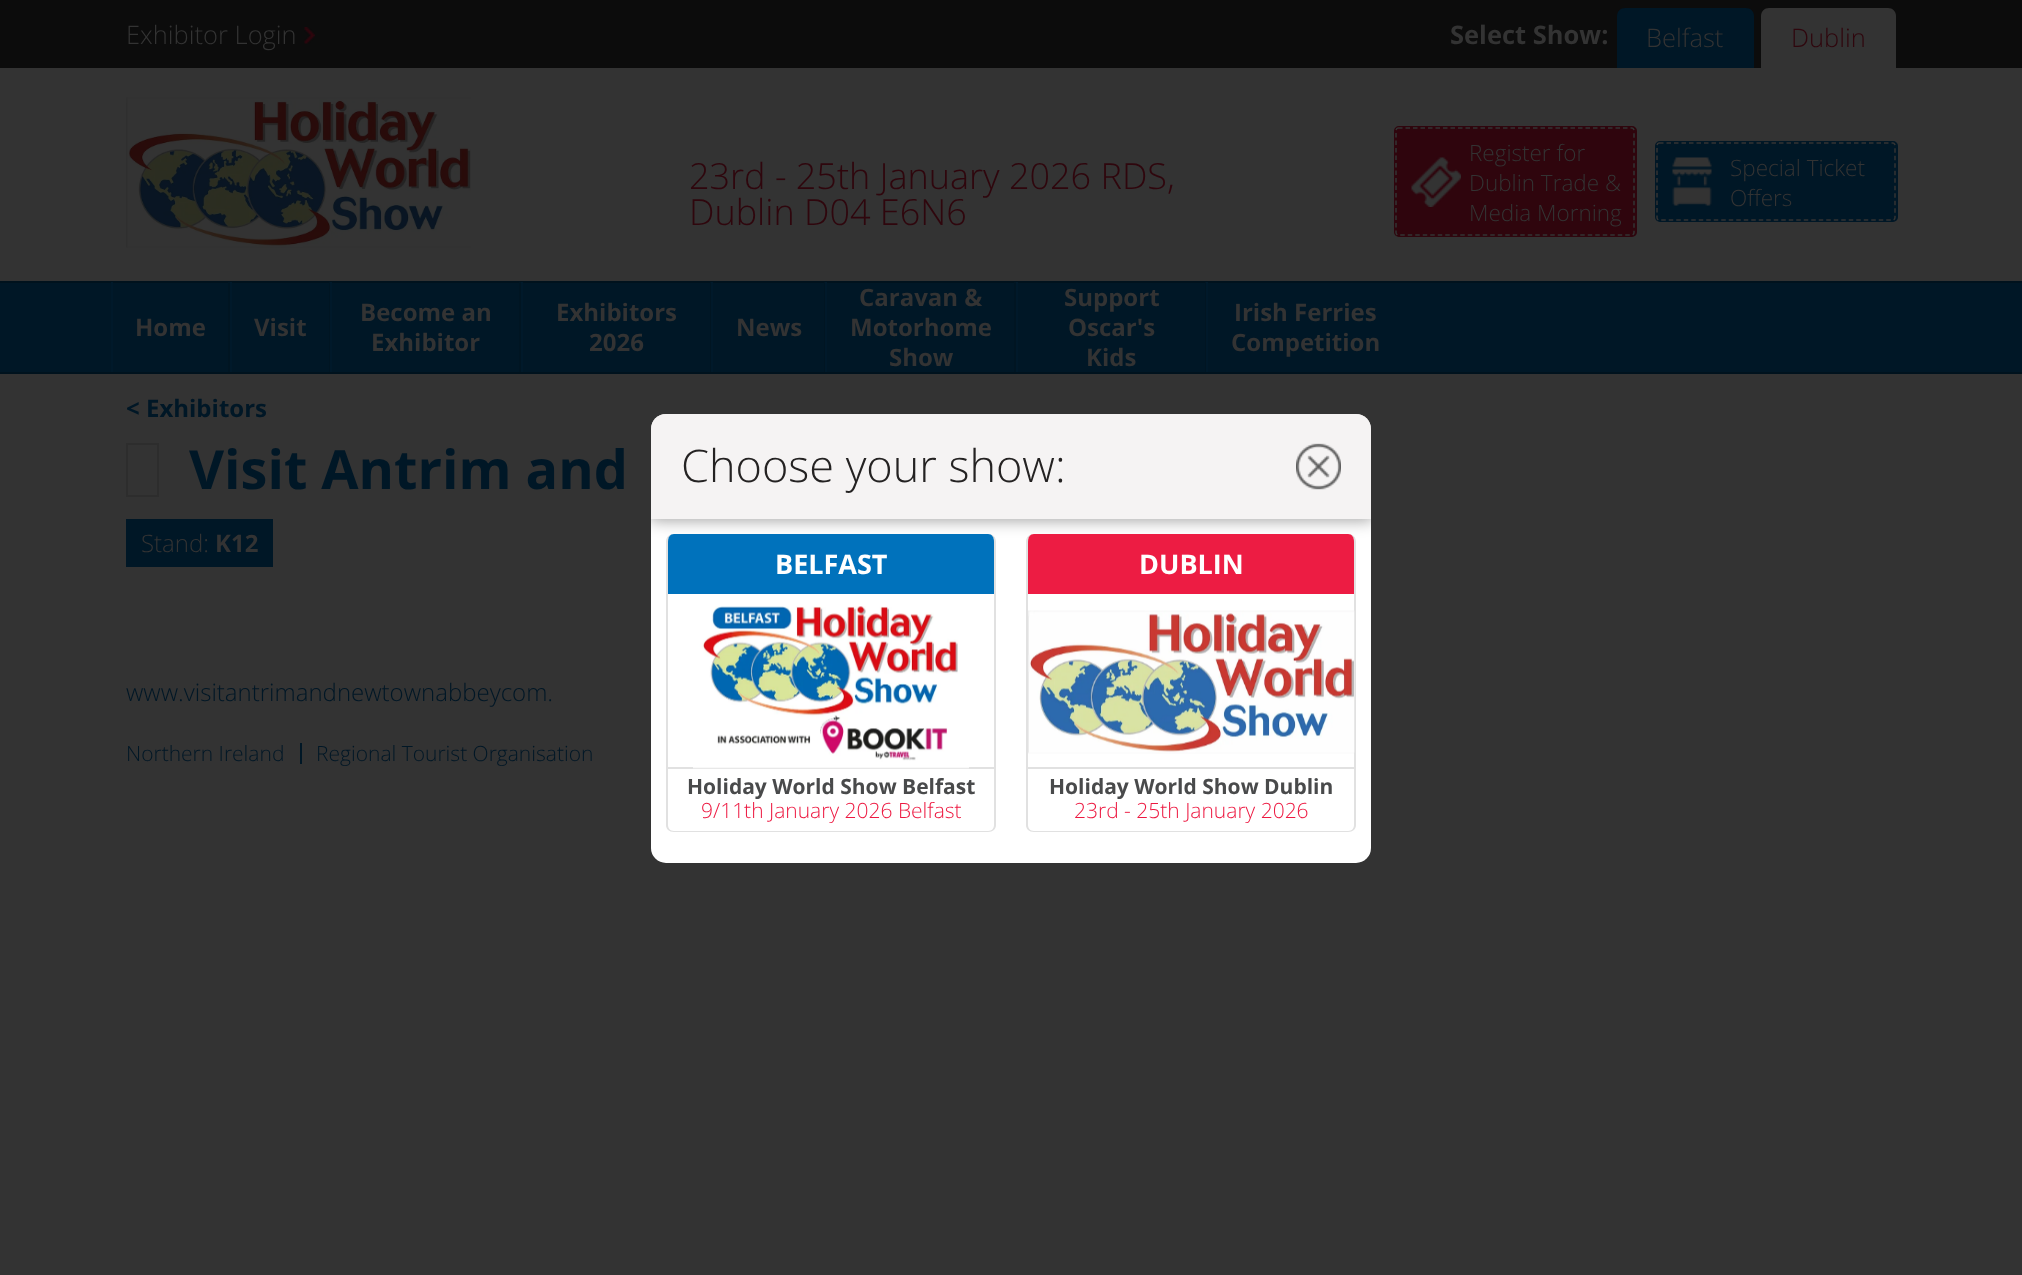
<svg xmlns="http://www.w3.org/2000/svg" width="2022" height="1275">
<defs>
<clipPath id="clip1"><rect x="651" y="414" width="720" height="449" rx="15"/></clipPath>
</defs>
<rect width="100%" height="100%" fill="#333"/>
<rect width="2022" height="68" fill="#0c0c0c"/>
<text x="126" y="44" style="font-family:Open Sans;font-size:25.5px;font-weight:300;fill:#333">Exhibitor Login</text>
<image x="304" y="27" width="11" height="17" href="media/1.png"/>
<text x="1450" y="44" style="font-family:Open Sans;font-size:25.5px;font-weight:bold;fill:#333">Select Show:</text>
<path d="M1625 8h121c4.5 0 8 3.5 8 8v52h-137v-52c0-4.5 3.5-8 8-8z" fill="#001726"/>
<text x="1646" y="47" style="font-family:Open Sans;font-size:25.5px;font-weight:300;fill:#333">Belfast</text>
<path d="M1769 8h119c4.5 0 8 3.5 8 8v52h-135v-52c0-4.5 3.5-8 8-8z" fill="#333"/>
<text x="1791" y="47" style="font-family:Open Sans;font-size:25.5px;font-weight:300;fill:#2f060d">Dublin</text>
<image x="126" y="97" width="345" height="151" href="media/2.png"/>
<text x="689" y="189" style="font-family:Open Sans;font-size:36px;font-weight:300;fill:#2f060d">23rd - 25th January 2026 RDS,</text>
<text x="689" y="225" style="font-family:Open Sans;font-size:36px;font-weight:300;fill:#2f060d">Dublin D04 E6N6</text>
<rect x="1395" y="127" width="241" height="109" rx="4" fill="none" stroke="#2f050d" stroke-width="2"/>
<rect x="1395" y="128" width="240" height="108" rx="3" fill="#2f050d"/>
<image x="1411" y="157" width="50" height="50" href="media/3.png"/>
<path d="M1398 128h234c1 0 2 1.5 2 2.5v102c0 1-1 2.5-2 2.5h-234c-1 0-2-1.5-2-2.5v-102c0-1 1-2.5 2-2.5z" fill="none" stroke="#333" stroke-width="1.5" stroke-dasharray="4.5 3"/>
<text x="1469" y="161" style="font-family:Open Sans;font-size:22.5px;font-weight:300;fill:#333">Register for</text>
<text x="1469" y="191" style="font-family:Open Sans;font-size:22.5px;font-weight:300;fill:#333">Dublin Trade &amp;</text>
<text x="1469" y="221" style="font-family:Open Sans;font-size:22.5px;font-weight:300;fill:#333">Media Morning</text>
<rect x="1656" y="142" width="241" height="79" rx="4" fill="none" stroke="#001726" stroke-width="2"/>
<rect x="1656" y="143" width="240" height="78" rx="3" fill="#001726"/>
<image x="1672" y="157" width="40" height="49" href="media/4.png"/>
<path d="M1659 143h234c1 0 2 1.5 2 2.5v72c0 1-1 2.5-2 2.5h-234c-1 0-2-1.5-2-2.5v-72c0-1 1-2.5 2-2.5z" fill="none" stroke="#333" stroke-width="1.5" stroke-dasharray="4.5 3"/>
<text x="1730" y="176" style="font-family:Open Sans;font-size:22.5px;font-weight:300;fill:#333">Special Ticket</text>
<text x="1730" y="206" style="font-family:Open Sans;font-size:22.5px;font-weight:300;fill:#333">Offers</text>
<rect y="283" width="2022" height="89" fill="#001726"/>
<rect y="281" width="2022" height="2" fill="#00121d"/>
<rect y="372" width="2022" height="2" fill="#00121d"/>
<rect x="228" y="282" width="2" height="90" fill="#001522"/>
<rect x="111" y="282" width="2" height="90" fill="#00192a"/>
<text x="135" y="336" style="font-family:Open Sans;font-size:24px;font-weight:bold;fill:#333">Home</text>
<rect x="329" y="282" width="1" height="90" fill="#001522"/>
<rect x="230" y="282" width="2" height="90" fill="#00192a"/>
<text x="254" y="336" style="font-family:Open Sans;font-size:24px;font-weight:bold;fill:#333">Visit</text>
<rect x="519" y="282" width="2" height="90" fill="#001522"/>
<rect x="330" y="282" width="2" height="90" fill="#00192a"/>
<text x="360" y="321" style="font-family:Open Sans;font-size:24px;font-weight:bold;fill:#333">Become an</text>
<text x="371" y="351" style="font-family:Open Sans;font-size:24px;font-weight:bold;fill:#333">Exhibitor</text>
<rect x="710" y="282" width="1" height="90" fill="#001522"/>
<rect x="521" y="282" width="2" height="90" fill="#00192a"/>
<text x="556" y="321" style="font-family:Open Sans;font-size:24px;font-weight:bold;fill:#333">Exhibitors</text>
<text x="589" y="351" style="font-family:Open Sans;font-size:24px;font-weight:bold;fill:#333">2026</text>
<rect x="824" y="282" width="1" height="90" fill="#001522"/>
<rect x="711" y="282" width="2" height="90" fill="#00192a"/>
<text x="736" y="336" style="font-family:Open Sans;font-size:24px;font-weight:bold;fill:#333">News</text>
<rect x="1014" y="282" width="2" height="90" fill="#001522"/>
<rect x="825" y="282" width="2" height="90" fill="#00192a"/>
<text x="859" y="306" style="font-family:Open Sans;font-size:24px;font-weight:bold;fill:#333">Caravan &amp;</text>
<text x="850" y="336" style="font-family:Open Sans;font-size:24px;font-weight:bold;fill:#333">Motorhome</text>
<text x="889" y="366" style="font-family:Open Sans;font-size:24px;font-weight:bold;fill:#333">Show</text>
<rect x="1205" y="282" width="1" height="90" fill="#001522"/>
<rect x="1016" y="282" width="2" height="90" fill="#00192a"/>
<text x="1064" y="306" style="font-family:Open Sans;font-size:24px;font-weight:bold;fill:#333">Support</text>
<text x="1068" y="336" style="font-family:Open Sans;font-size:24px;font-weight:bold;fill:#333">Oscar's</text>
<text x="1086" y="366" style="font-family:Open Sans;font-size:24px;font-weight:bold;fill:#333">Kids</text>
<rect x="1206" y="282" width="2" height="90" fill="#00192a"/>
<text x="1234" y="321" style="font-family:Open Sans;font-size:24px;font-weight:bold;fill:#333">Irish Ferries</text>
<text x="1231" y="351" style="font-family:Open Sans;font-size:24px;font-weight:bold;fill:#333">Competition</text>
<text x="126" y="417" style="font-family:Open Sans;font-size:24px;font-weight:bold;fill:#001726">&lt; Exhibitors</text>
<rect x="127" y="444" width="31" height="52" fill="none" stroke="#2d2d2d" stroke-width="2"/>
<text x="189" y="489" style="font-family:Open Sans;font-size:54px;font-weight:bold;fill:#001726">Visit Antrim and</text>
<rect x="126" y="519" width="147" height="48" fill="#001726"/>
<text x="141" y="552" style="font-family:Open Sans;font-size:24px;font-weight:300;fill:#333">Stand:</text>
<text x="215" y="552" style="font-family:Open Sans;font-size:24px;font-weight:bold;fill:#333">K12</text>
<text x="126" y="701" style="font-family:Open Sans;font-size:24px;font-weight:300;fill:#001726">www.visitantrimandnewtownabbeycom.</text>
<text x="126" y="761" style="font-family:Open Sans;font-size:21px;font-weight:300;fill:#001726">Northern Ireland</text>
<rect x="300" y="743" width="2" height="21" fill="#001726"/>
<text x="316" y="761" style="font-family:Open Sans;font-size:21px;font-weight:300;fill:#001726">Regional Tourist Organisation</text>
<rect x="651" y="414" width="720" height="449" rx="15" fill="#fff"/>
<g clip-path="url(#clip1)">
<rect x="650" y="413" width="723" height="108" fill="#00000059" filter="blur(7.5px)"/>
</g>
<path d="M666 414h690c8.5 0 15 6.5 15 15v90h-720v-90c0-8.5 6.5-15 15-15z" fill="#f5f3f3"/>
<text x="681" y="482" style="font-family:Open Sans;font-size:45px;font-weight:300;fill:#242222">Choose your show:</text>
<image x="1296" y="443" width="45" height="47" href="media/5.png"/>
<path d="M674 534h314c5 0 8 3 8 8v283c0 4-3 7-8 7h-314c-5 0-8-3-8-7v-283c0-5 3-8 8-8zm0 0h314c4 0 6 3 6 8v283c0 3-2 6-6 6h-314c-4 0-6-3-6-6v-283c0-5 2-8 6-8z" fill="#e1e1e1" fill-rule="evenodd"/>
<path d="M674 534c-4 0-6 3-6 8v52h326v-52c0-5-2-8-6-8z" fill="#0072bc"/>
<text x="775" y="574" style="font-family:Open Sans;font-size:27px;font-weight:bold;fill:#fff">BELFAST</text>
<rect x="668" y="767" width="326" height="2" fill="#e1e1e1"/>
<image x="693" y="606" width="276" height="163" href="media/6.png"/>
<text x="687" y="794" style="font-family:Open Sans;font-size:21px;font-weight:bold;fill:#494a4b">Holiday World Show Belfast</text>
<text x="701" y="818" style="font-family:Open Sans;font-size:21px;font-weight:300;fill:#ed1941">9/11th January 2026 Belfast</text>
<path d="M1034 534h314c5 0 8 3 8 8v283c0 4-3 7-8 7h-314c-5 0-8-3-8-7v-283c0-5 3-8 8-8zm0 0h314c4 0 6 3 6 8v283c0 3-2 6-6 6h-314c-4 0-6-3-6-6v-283c0-5 2-8 6-8z" fill="#e1e1e1" fill-rule="evenodd"/>
<path d="M1034 534c-4 0-6 3-6 8v52h326v-52c0-5-2-8-6-8z" fill="#ed1c43"/>
<text x="1139" y="574" style="font-family:Open Sans;font-size:27px;font-weight:bold;fill:#fff">DUBLIN</text>
<rect x="1028" y="767" width="326" height="2" fill="#e1e1e1"/>
<image x="1028" y="610" width="327" height="144" href="media/7.png"/>
<text x="1049" y="794" style="font-family:Open Sans;font-size:21px;font-weight:bold;fill:#494a4b">Holiday World Show Dublin</text>
<text x="1074" y="818" style="font-family:Open Sans;font-size:21px;font-weight:300;fill:#ed1941">23rd - 25th January 2026</text>
</svg>
